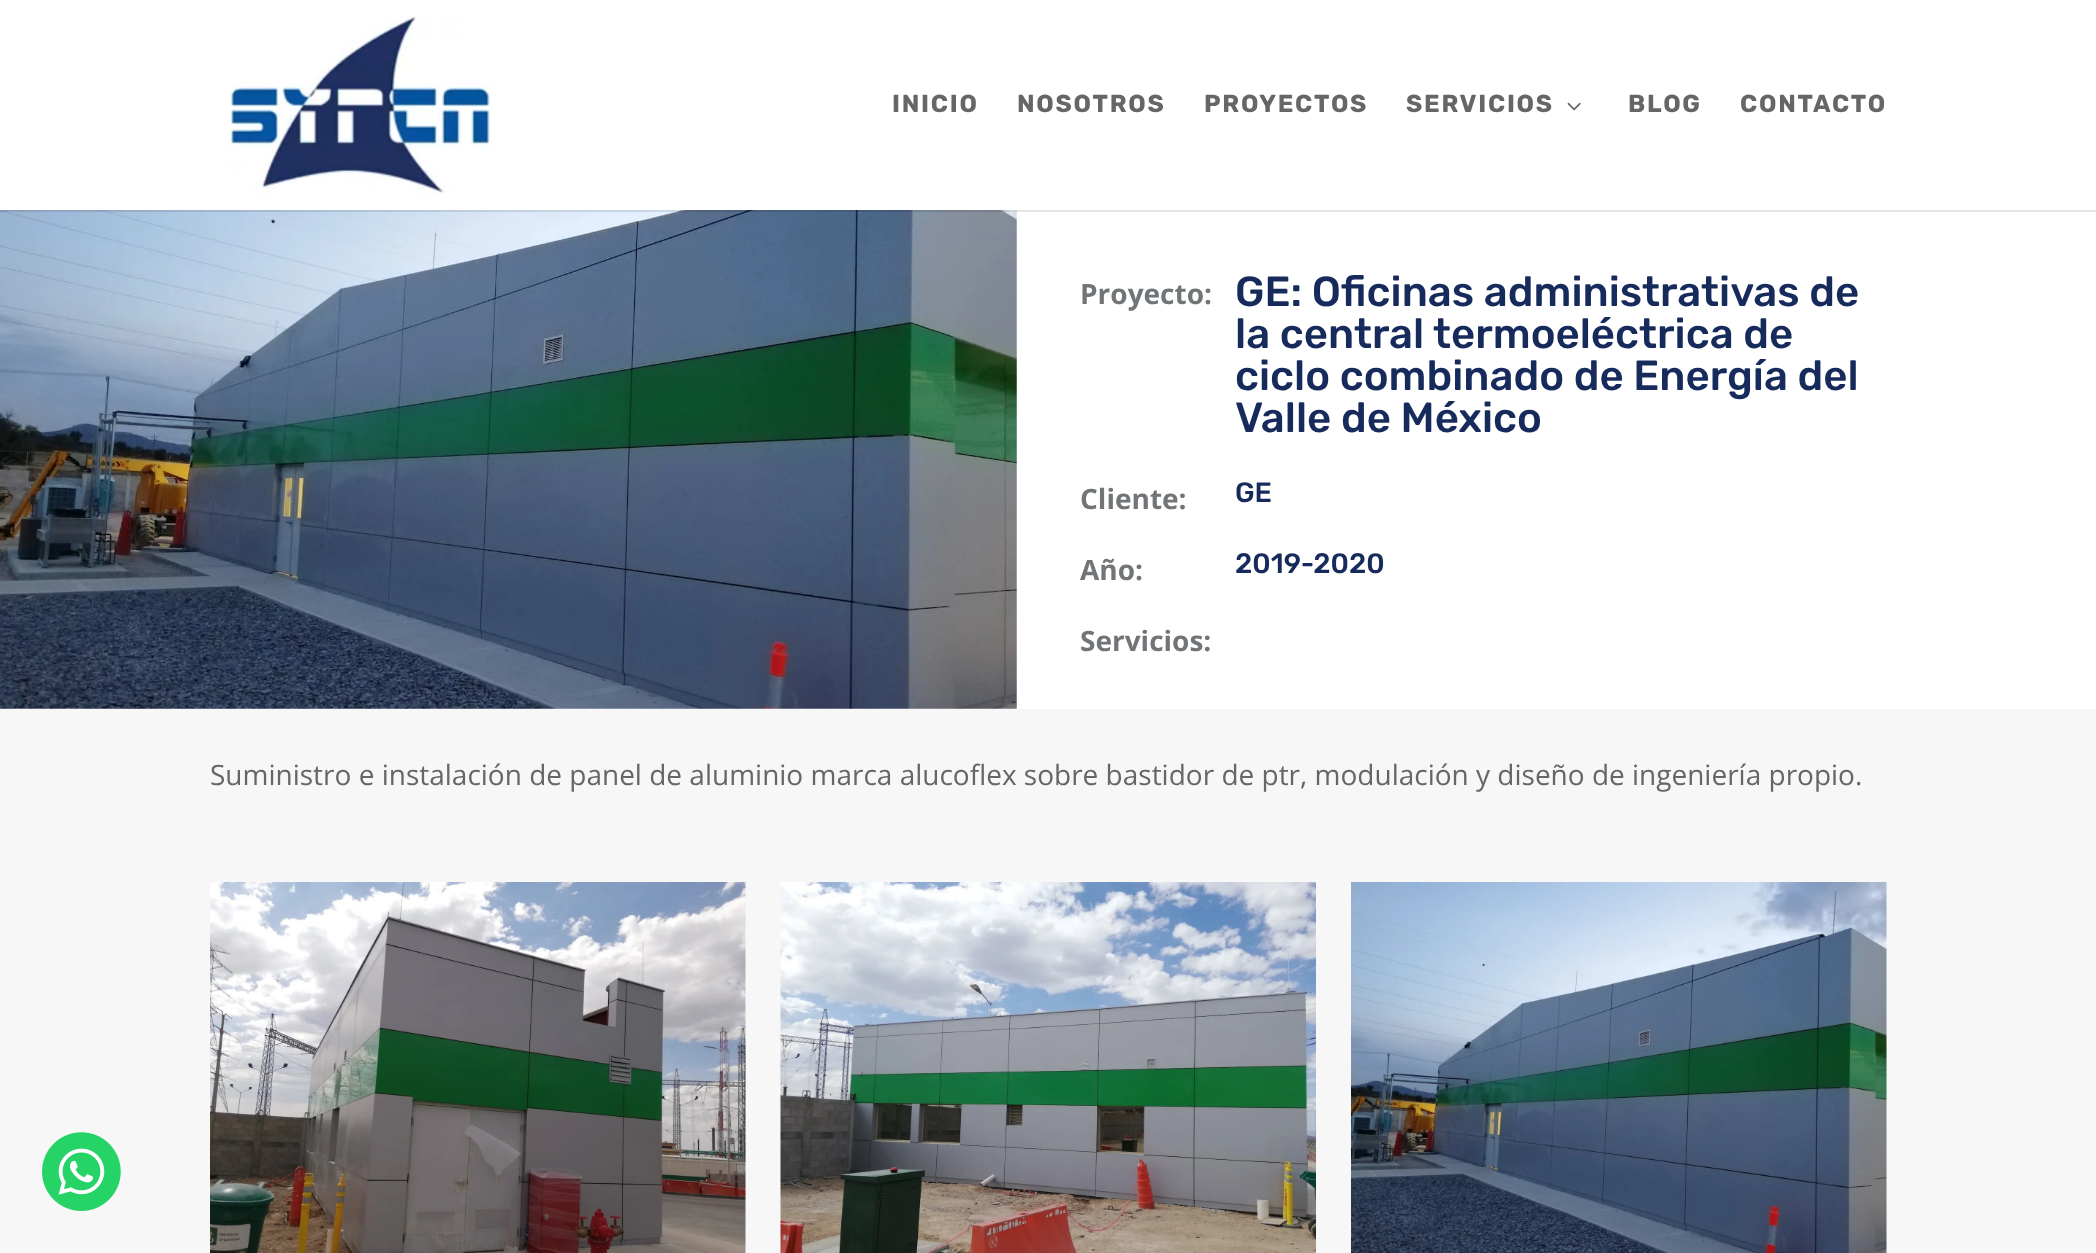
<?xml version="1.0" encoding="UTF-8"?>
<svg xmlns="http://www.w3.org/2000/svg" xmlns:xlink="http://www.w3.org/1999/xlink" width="2096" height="1253">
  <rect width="100%" height="100%" fill="#ffffff" />
  <image x="0" y="210" width="1017" height="499" xlink:href="image3.png" />
  <path d="M 0 210 v 2 h 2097 v -210 h -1 v 208 z" fill="#000000" fill-opacity="0.1" />
  <image x="226" y="16" width="268" height="179" xlink:href="image1.png" />
  <image x="1567" y="102" width="14" height="9" xlink:href="image2.png" />
  <rect y="709" width="2096" height="544" fill="#f7f7f7" />
  <image x="210" y="882" width="536" height="371" xlink:href="image4.png" />
  <image x="780" y="882" width="536" height="371" xlink:href="image5.png" />
  <image x="1351" y="882" width="536" height="371" xlink:href="image6.png" />
  <circle cx="81.5" cy="1171.5" r="39.5" fill="#ffffff" />
  <image x="42" y="1132" width="79" height="79" xlink:href="image7.png" />
  <text x="892" y="112" style="font-family: 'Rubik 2'; font-size: 24.5px; font-weight: 300; letter-spacing: 1.75px; fill: #666666">INICIO</text>
  <text x="1017" y="112" style="font-family: 'Rubik 2'; font-size: 24.5px; font-weight: 300; letter-spacing: 1.75px; fill: #666666">NOSOTROS</text>
  <text x="1204" y="112" style="font-family: 'Rubik 2'; font-size: 24.5px; font-weight: 300; letter-spacing: 1.75px; fill: #666666">PROYECTOS</text>
  <text x="1406" y="112" style="font-family: 'Rubik 2'; font-size: 24.5px; font-weight: 300; letter-spacing: 1.75px; fill: #666666">SERVICIOS</text>
  <text x="1628" y="112" style="font-family: 'Rubik 2'; font-size: 24.5px; font-weight: 300; letter-spacing: 1.75px; fill: #666666">BLOG</text>
  <text x="1740" y="112" style="font-family: 'Rubik 2'; font-size: 24.5px; font-weight: 300; letter-spacing: 1.75px; fill: #666666">CONTACTO</text>
  <text x="1080" y="304" style="font-family: Open Sans; font-size: 28px; font-weight: bold; fill: #727577">Proyecto:</text>
  <text x="1235" y="306" style="font-family: Rubik; font-size: 42px; font-weight: 300; fill: #172a5c">GE: Oficinas administrativas de</text>
  <text x="1235" y="348" style="font-family: Rubik; font-size: 42px; font-weight: 300; fill: #172a5c">la central termoeléctrica de</text>
  <text x="1235" y="390" style="font-family: Rubik; font-size: 42px; font-weight: 300; fill: #172a5c">ciclo combinado de Energía del</text>
  <text x="1235" y="432" style="font-family: Rubik; font-size: 42px; font-weight: 300; fill: #172a5c">Valle de México</text>
  <text x="1080" y="509" style="font-family: Open Sans; font-size: 28px; font-weight: bold; fill: #727577">Cliente:</text>
  <text x="1235" y="502" style="font-family: Rubik; font-size: 28px; font-weight: 300; fill: #172a5c">GE</text>
  <text x="1080" y="580" style="font-family: Open Sans; font-size: 28px; font-weight: bold; fill: #727577">Año:</text>
  <text x="1235" y="573" style="font-family: Rubik; font-size: 28px; font-weight: 300; fill: #172a5c">2019-2020</text>
  <text x="1080" y="651" style="font-family: Open Sans; font-size: 28px; font-weight: bold; fill: #727577">Servicios:</text>
  <text x="210" y="785" style="font-family: Open Sans; font-size: 28px; fill: #666666">Suministro e instalación de panel de aluminio marca alucoflex sobre bastidor de ptr, modulación y diseño de ingeniería propio.</text>
</svg>
